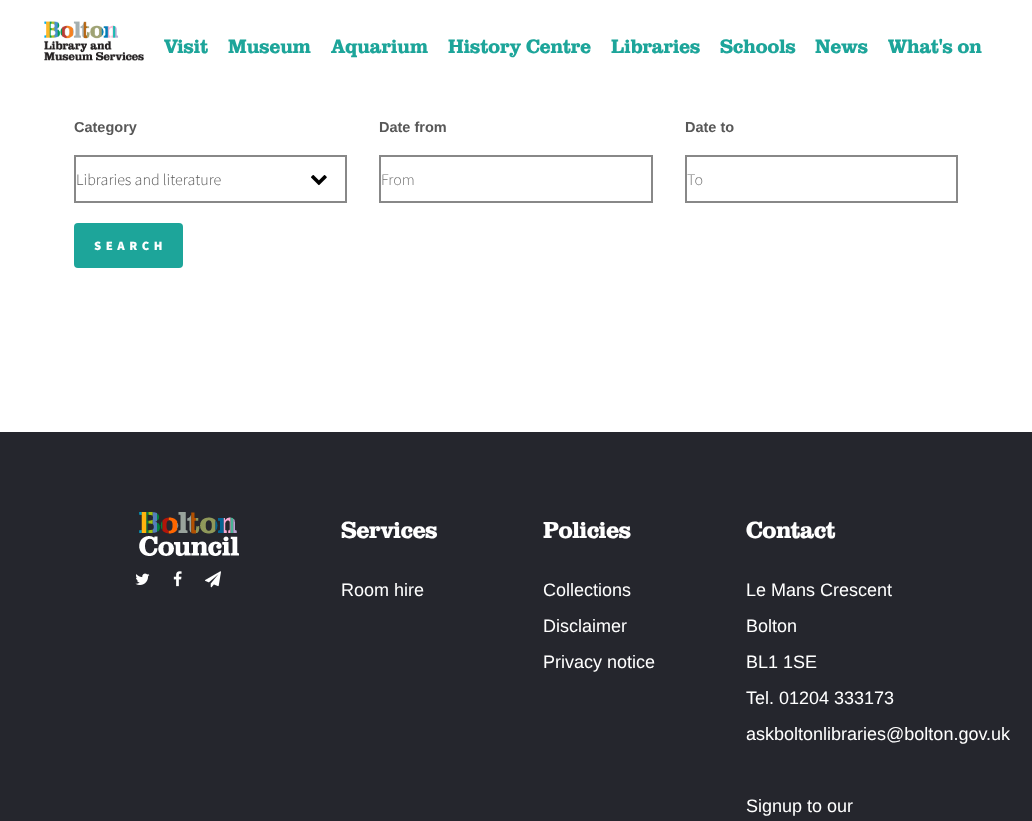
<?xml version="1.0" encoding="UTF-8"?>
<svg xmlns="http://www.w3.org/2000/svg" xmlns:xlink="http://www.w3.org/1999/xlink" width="1032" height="821">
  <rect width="100%" height="100%" fill="#ffffff" />
  <image x="44" y="21" width="100" height="40" xlink:href="image1.png" />
  <image x="311" y="175" width="16" height="11" xlink:href="image2.png" />
  <rect x="75" y="156" width="271" height="46" fill="none" stroke="#888888" stroke-width="2" />
  <rect x="380" y="156" width="272" height="46" fill="none" stroke="#888888" stroke-width="2" />
  <rect x="686" y="156" width="271" height="46" fill="none" stroke="#888888" stroke-width="2" />
  <rect x="74" y="223" width="109" height="45" rx="4" fill="#1da59a" />
  <rect y="432" width="1032" height="389" fill="#25262d" />
  <image x="139" y="512" width="100" height="44" xlink:href="image3.png" />
  <image x="135" y="573" width="15" height="12" xlink:href="image4.png" />
  <image x="173" y="571" width="9" height="16" xlink:href="image5.png" />
  <image x="205" y="571" width="16" height="17" xlink:href="image6.png" />
  <text x="164" y="53" style="font-family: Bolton; font-size: 20px; fill: #1da59a">Visit</text>
  <text x="228" y="53" style="font-family: Bolton; font-size: 20px; fill: #1da59a">Museum</text>
  <text x="331" y="53" style="font-family: Bolton; font-size: 20px; fill: #1da59a">Aquarium</text>
  <text x="448" y="53" style="font-family: Bolton; font-size: 20px; fill: #1da59a">History Centre</text>
  <text x="611" y="53" style="font-family: Bolton; font-size: 20px; fill: #1da59a">Libraries</text>
  <text x="720" y="53" style="font-family: Bolton; font-size: 20px; fill: #1da59a">Schools</text>
  <text x="815" y="53" style="font-family: Bolton; font-size: 20px; fill: #1da59a">News</text>
  <text x="888" y="53" style="font-family: Bolton; font-size: 20px; fill: #1da59a">What's on</text>
  <text x="74" y="132" style="font-family: Liberation Sans; font-size: 14.5px; font-weight: bold; fill: #585858">Category</text>
  <text x="76" y="185" style="font-family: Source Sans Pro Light; font-size: 16px; font-weight: 300; fill: #585858">Libraries and literature</text>
  <text x="379" y="132" style="font-family: Liberation Sans; font-size: 14.5px; font-weight: bold; fill: #585858">Date from</text>
  <text x="381" y="185" style="font-family: Source Sans Pro Light; font-size: 16px; font-weight: 300; fill: #707070">From</text>
  <text x="685" y="132" style="font-family: Liberation Sans; font-size: 14.5px; font-weight: bold; fill: #585858">Date to</text>
  <text x="687" y="185" style="font-family: Source Sans Pro Light; font-size: 16px; font-weight: 300; fill: #707070">To</text>
  <text x="94" y="250" style="font-family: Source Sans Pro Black; font-size: 12.75px; font-weight: 900; letter-spacing: 4.5px; fill: #ffffff">SEARCH</text>
  <text x="341" y="538" style="font-family: Bolton; font-size: 24px; letter-spacing: -0.25px; fill: #ffffff">Services</text>
  <text x="341" y="596" style="font-family: Liberation Sans; font-size: 18px; fill: #ffffff">Room hire</text>
  <text x="543" y="538" style="font-family: Bolton; font-size: 24px; letter-spacing: -0.25px; fill: #ffffff">Policies</text>
  <text x="543" y="596" style="font-family: Liberation Sans; font-size: 18px; fill: #ffffff">Collections</text>
  <text x="543" y="632" style="font-family: Liberation Sans; font-size: 18px; fill: #ffffff">Disclaimer</text>
  <text x="543" y="668" style="font-family: Liberation Sans; font-size: 18px; fill: #ffffff">Privacy notice</text>
  <text x="746" y="538" style="font-family: Bolton; font-size: 24px; letter-spacing: -0.25px; fill: #ffffff">Contact</text>
  <text x="746" y="596" style="font-family: Liberation Sans; font-size: 18px; fill: #ffffff">Le Mans Crescent</text>
  <text x="746" y="632" style="font-family: Liberation Sans; font-size: 18px; fill: #ffffff">Bolton</text>
  <text x="746" y="668" style="font-family: Liberation Sans; font-size: 18px; fill: #ffffff">BL1 1SE</text>
  <text x="746" y="704" style="font-family: Liberation Sans; font-size: 18px; fill: #ffffff">Tel. 01204 333173</text>
  <text x="746" y="740" style="font-family: Liberation Sans; font-size: 18px; fill: #ffffff">askboltonlibraries@bolton.gov.uk</text>
  <text x="746" y="812" style="font-family: Liberation Sans; font-size: 18px; fill: #ffffff">Signup to our</text>
</svg>
